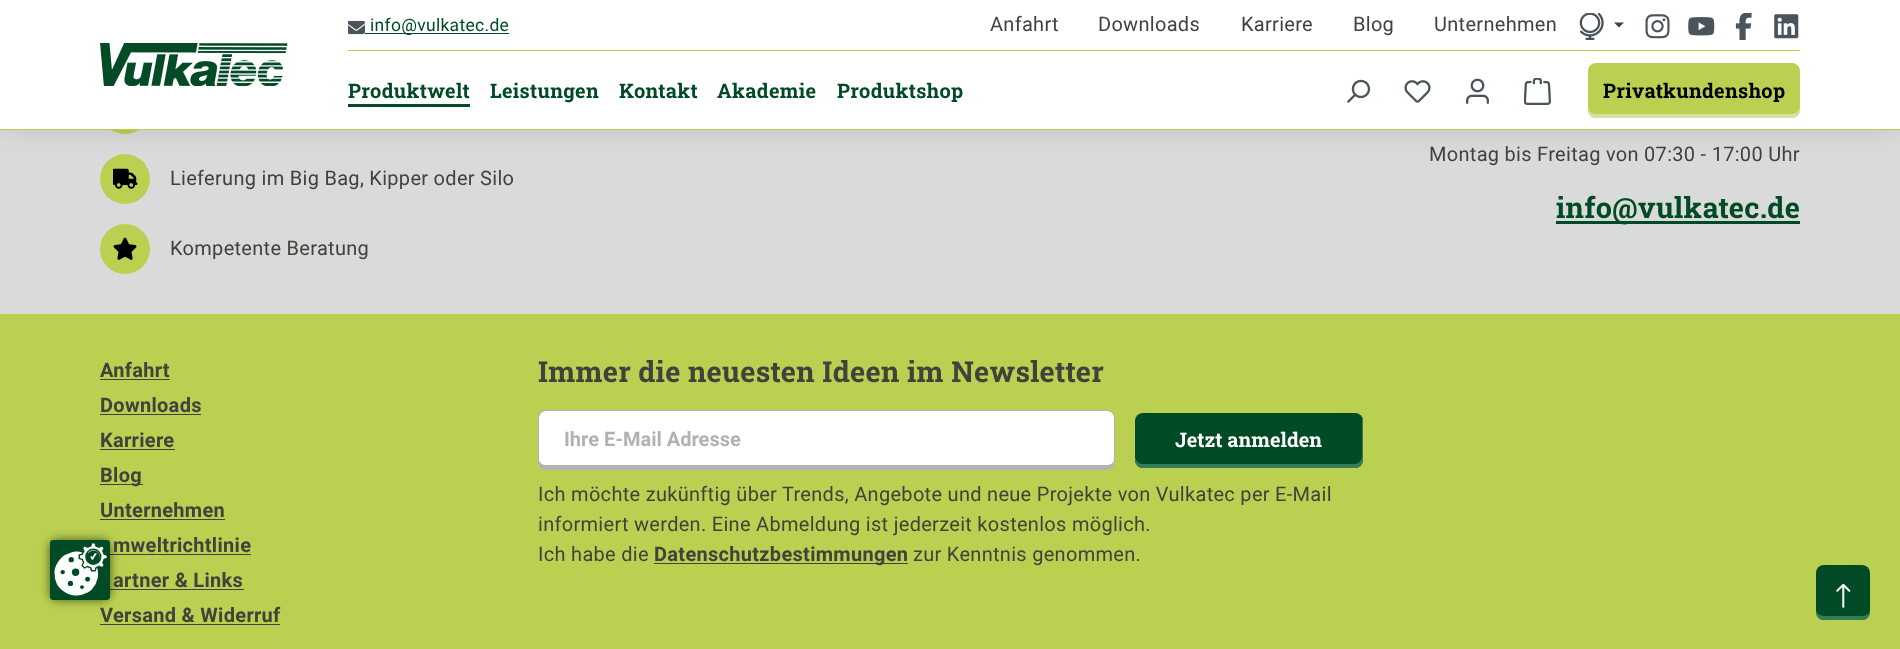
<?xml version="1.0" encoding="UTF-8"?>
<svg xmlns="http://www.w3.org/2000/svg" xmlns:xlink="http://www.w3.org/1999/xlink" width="1900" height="649">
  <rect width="100%" height="100%" fill="#d9dada" />
  <circle cx="125" cy="109" r="25" fill="#bad050" />
  <circle cx="125" cy="179" r="25" fill="#bad050" />
  <image x="113" y="168" width="25" height="21" xlink:href="image13.png" />
  <rect x="6" y="5" width="1888" height="118" fill="#000000" fill-opacity="0.2" filter="blur(15px)" />
  <rect width="1900" height="129" fill="#ffffff" />
  <rect y="129" width="1900" height="1" fill="#bad050" />
  <image x="100" y="43" width="188" height="43" xlink:href="image1.png" />
  <rect x="348" y="50" width="1452" height="1" fill="#bad050" />
  <image x="348" y="20" width="17" height="15" xlink:href="image2.png" />
  <rect x="365" y="33" width="144" height="1" fill="#004b25" />
  <image x="1579" y="13" width="25" height="27" xlink:href="image3.png" />
  <path d="M 1614 22.5 h 10 l -5 5 z" fill="#42423d" />
  <image x="1645" y="14" width="25" height="25" xlink:href="image4.png" />
  <image x="1688" y="17" width="27" height="19" xlink:href="image5.png" />
  <image x="1735" y="13" width="17" height="27" xlink:href="image6.png" />
  <image x="1774" y="14" width="25" height="25" xlink:href="image7.png" />
  <rect x="348" y="104" width="122" height="3" fill="#004b25" />
  <image x="1347" y="79" width="24" height="24" xlink:href="image8.png" />
  <image x="1404" y="80" width="27" height="23" xlink:href="image9.png" />
  <image x="1466" y="78" width="23" height="26" xlink:href="image10.png" />
  <image x="1524" y="78" width="27" height="27" xlink:href="image11.png" />
  <rect x="1588" y="63" width="212" height="55" rx="8" fill="#bad050" />
  <path d="M 1588 106 v 4 c 0 4 4 8 8 8 h 196 c 4 0 8 -4 8 -8 v -4 c 0 4 -3 8 -8 8 h -197 c -4 0 -7 -4 -7 -8 z" fill="#d6e0a6" />
  <rect y="314" width="1900" height="335" fill="#bad050" />
  <rect x="110" y="554" width="141" height="1" fill="#42423d" />
  <rect x="110" y="589" width="134" height="1" fill="#42423d" />
  <rect x="49" y="539" width="62" height="62" rx="9" fill="#000000" fill-opacity="0.5" filter="blur(4px)" />
  <image x="50" y="540" width="60" height="60" xlink:href="image12.png" />
  <circle cx="125" cy="249" r="25" fill="#bad050" />
  <image x="113" y="237" width="24" height="23" xlink:href="image14.png" />
  <rect x="1556" y="221" width="244" height="3" fill="#004b25" />
  <rect x="100" y="379" width="70" height="1" fill="#42423d" />
  <rect x="100" y="414" width="101" height="1" fill="#42423d" />
  <rect x="100" y="449" width="75" height="1" fill="#42423d" />
  <rect x="100" y="484" width="43" height="1" fill="#42423d" />
  <rect x="100" y="519" width="125" height="1" fill="#42423d" />
  <rect x="100" y="624" width="180" height="1" fill="#42423d" />
  <rect x="539" y="411" width="575" height="58" rx="6" fill="#ffffff" />
  <path d="M 539 459 c 0 4 0 10 6 10 h 563 c 6 0 6 -6 6 -10 c 0 3 -3 6 -6 6 h -563 c -3 0 -6 -3 -6 -6 z" fill="#b1b2b3" />
  <rect x="538.5" y="410.5" width="576" height="59" rx="7.5" fill="none" stroke="#b1b2b3" />
  <rect x="1135" y="413" width="228" height="55" rx="8" fill="#004b25" />
  <path d="M 1135 456 v 4 c 0 4 4 8 8 8 h 212 c 4 0 8 -4 8 -8 v -39 c 0 -1 0 -3 -1 -4 v 39 c 0 4 -3 8 -7 8 h -213 c -4 0 -7 -4 -7 -8 z" fill="#357c58" />
  <rect x="654" y="563" width="254" height="1" fill="#42423d" />
  <rect x="1816" y="565" width="54" height="55" rx="8" fill="#004b25" />
  <path d="M 1816 609 c 0 11 5 11 14 11 h 26 c 9 0 14 0 14 -11 c 0 4 -3 7 -8 7 h -38 c -4 0 -8 -3 -8 -7 z" fill="#357c58" />
  <image x="1836" y="584" width="15" height="24" xlink:href="image15.png" />
  <text x="370" y="31" style="font-family: Roboto; font-size: 17.5px; letter-spacing: 0.3px; fill: #004b25">info@vulkatec.de</text>
  <text x="990" y="31" style="font-family: Roboto; font-size: 20px; letter-spacing: 0.3px; fill: #42423d">Anfahrt</text>
  <text x="1098" y="31" style="font-family: Roboto; font-size: 20px; letter-spacing: 0.3px; fill: #42423d">Downloads</text>
  <text x="1241" y="31" style="font-family: Roboto; font-size: 20px; letter-spacing: 0.3px; fill: #42423d">Karriere</text>
  <text x="1353" y="31" style="font-family: Roboto; font-size: 20px; letter-spacing: 0.3px; fill: #42423d">Blog</text>
  <text x="1434" y="31" style="font-family: Roboto; font-size: 20px; letter-spacing: 0.3px; fill: #42423d">Unternehmen</text>
  <text x="348" y="98" style="font-family: Roboto Slab; font-size: 20px; font-weight: bold; letter-spacing: 0.3px; fill: #004b25">Produktwelt</text>
  <text x="490" y="98" style="font-family: Roboto Slab; font-size: 20px; font-weight: bold; letter-spacing: 0.3px; fill: #004b25">Leistungen</text>
  <text x="619" y="98" style="font-family: Roboto Slab; font-size: 20px; font-weight: bold; letter-spacing: 0.3px; fill: #004b25">Kontakt</text>
  <text x="717" y="98" style="font-family: Roboto Slab; font-size: 20px; font-weight: bold; letter-spacing: 0.3px; fill: #004b25">Akademie</text>
  <text x="837" y="98" style="font-family: Roboto Slab; font-size: 20px; font-weight: bold; letter-spacing: 0.3px; fill: #004b25">Produktshop</text>
  <text x="1603" y="98" style="font-family: Roboto Slab; font-size: 20px; font-weight: bold; letter-spacing: 0.3px; fill: #000000">Privatkundenshop</text>
  <text x="170" y="185" style="font-family: Roboto; font-size: 20px; letter-spacing: 0.3px; fill: #42423d">Lieferung im Big Bag, Kipper oder Silo</text>
  <text x="170" y="255" style="font-family: Roboto; font-size: 20px; letter-spacing: 0.3px; fill: #42423d">Kompetente Beratung</text>
  <text x="1429" y="161" style="font-family: Roboto; font-size: 20px; letter-spacing: 0.3px; fill: #42423d">Montag bis Freitag von 07:30 - 17:00 Uhr</text>
  <text x="1556" y="218" style="font-family: Roboto Slab; font-size: 28.8px; font-weight: bold; letter-spacing: 0.3px; fill: #004b25">info@vulkatec.de</text>
  <text x="100" y="377" style="font-family: Roboto; font-size: 20px; font-weight: bold; letter-spacing: 0.3px; fill: #42423d">Anfahrt</text>
  <text x="100" y="412" style="font-family: Roboto; font-size: 20px; font-weight: bold; letter-spacing: 0.3px; fill: #42423d">Downloads</text>
  <text x="100" y="447" style="font-family: Roboto; font-size: 20px; font-weight: bold; letter-spacing: 0.3px; fill: #42423d">Karriere</text>
  <text x="100" y="482" style="font-family: Roboto; font-size: 20px; font-weight: bold; letter-spacing: 0.3px; fill: #42423d">Blog</text>
  <text x="100" y="517" style="font-family: Roboto; font-size: 20px; font-weight: bold; letter-spacing: 0.3px; fill: #42423d">Unternehmen</text>
  <text x="113" y="552" style="font-family: Roboto; font-size: 20px; font-weight: bold; letter-spacing: 0.3px; fill: #42423d">mweltrichtlinie</text>
  <text x="113" y="587" style="font-family: Roboto; font-size: 20px; font-weight: bold; letter-spacing: 0.3px; fill: #42423d">artner &amp; Links</text>
  <text x="100" y="622" style="font-family: Roboto; font-size: 20px; font-weight: bold; letter-spacing: 0.3px; fill: #42423d">Versand &amp; Widerruf</text>
  <text x="538" y="382" style="font-family: Roboto Slab; font-size: 28.8px; font-weight: bold; letter-spacing: 0.3px; fill: #42423d">Immer die neuesten Ideen im Newsletter</text>
  <text x="564" y="446" style="font-family: Roboto; font-size: 20px; font-weight: bold; fill: #b1b2b3">Ihre E-Mail Adresse</text>
  <text x="1175" y="447" style="font-family: Roboto Slab; font-size: 20px; font-weight: bold; fill: #ffffff">Jetzt anmelden</text>
  <text x="538" y="501" style="font-family: Roboto; font-size: 20px; letter-spacing: 0.3px; fill: #42423d">Ich möchte zukünftig über Trends, Angebote und neue Projekte von Vulkatec per E-Mail</text>
  <text x="538" y="531" style="font-family: Roboto; font-size: 20px; letter-spacing: 0.3px; fill: #42423d">informiert werden. Eine Abmeldung ist jederzeit kostenlos möglich.</text>
  <text x="538" y="561" style="font-family: Roboto; font-size: 20px; letter-spacing: 0.3px; fill: #42423d">Ich habe die</text>
  <text x="654" y="561" style="font-family: Roboto; font-size: 20px; font-weight: bold; letter-spacing: 0.3px; fill: #42423d">Datenschutzbestimmungen</text>
  <text x="913" y="561" style="font-family: Roboto; font-size: 20px; letter-spacing: 0.3px; fill: #42423d">zur Kenntnis genommen.</text>
</svg>
